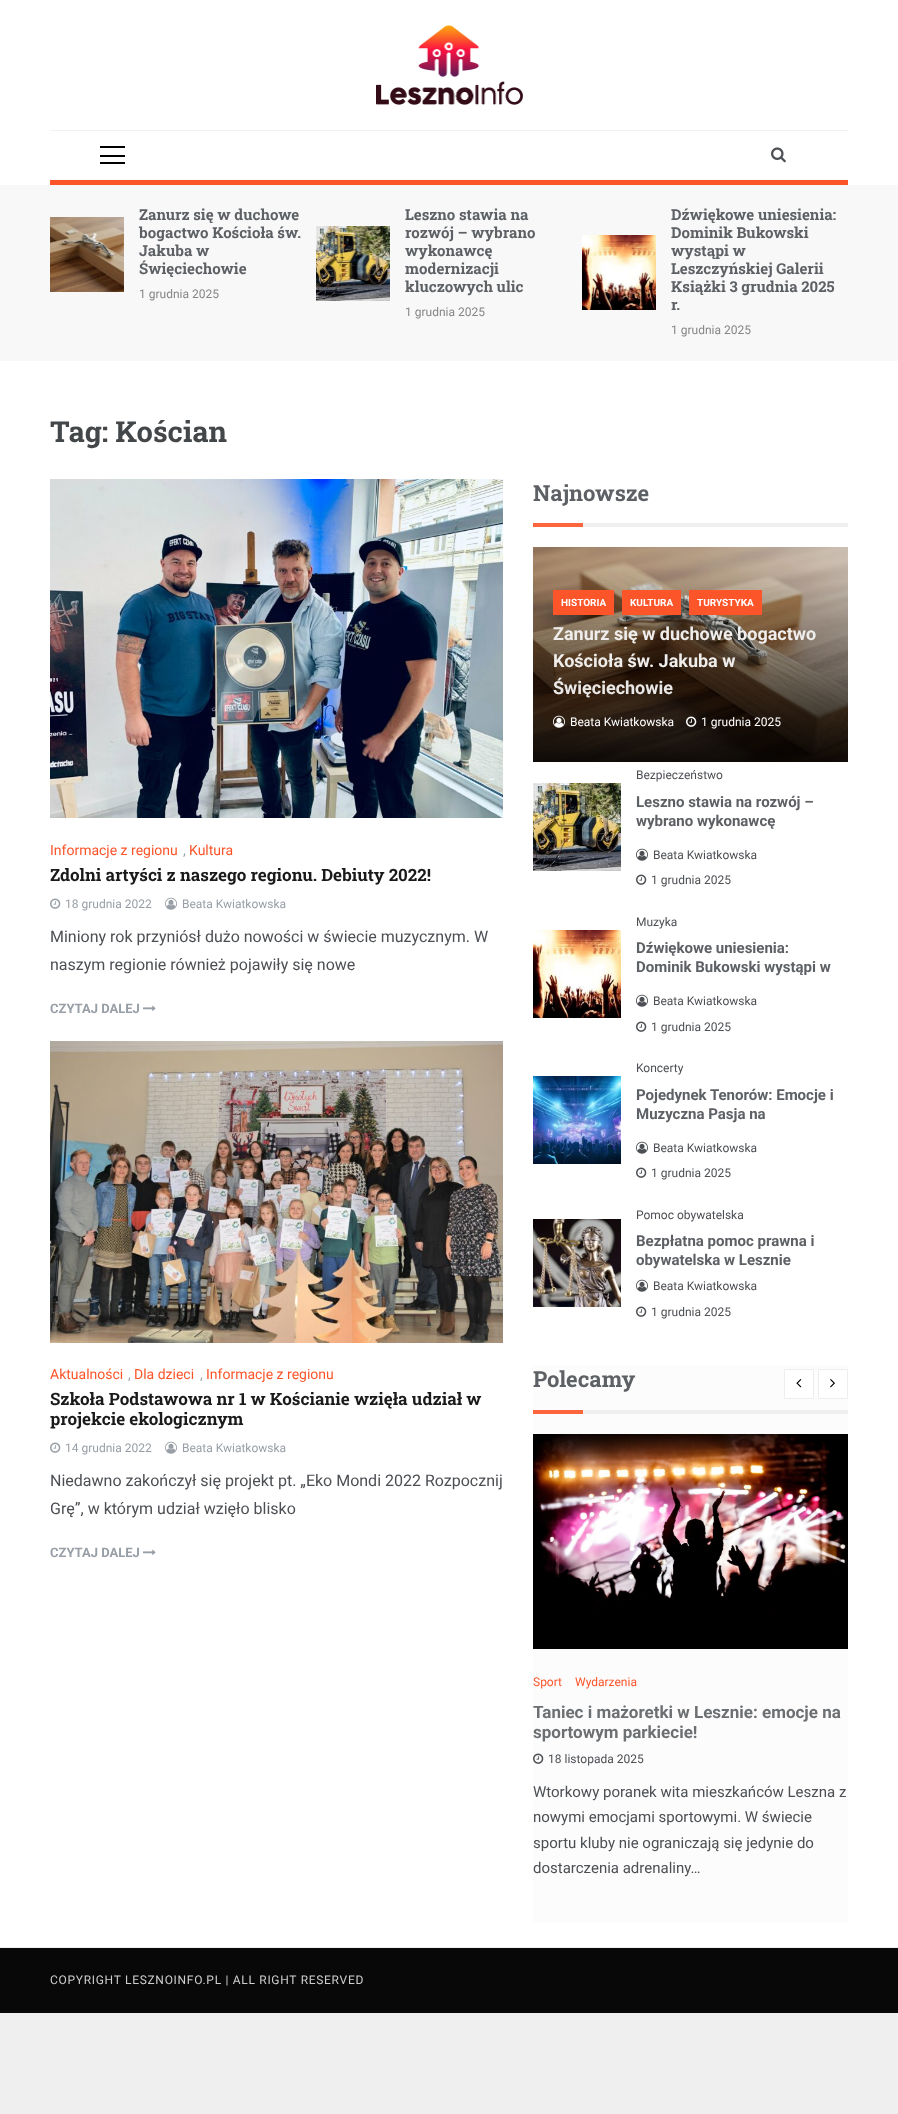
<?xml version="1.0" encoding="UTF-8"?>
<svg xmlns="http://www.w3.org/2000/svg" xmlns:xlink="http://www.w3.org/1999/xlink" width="898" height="2114">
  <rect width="100%" height="100%" fill="#efefef" />
  <rect width="898" height="1947" fill="#ffffff" />
  <rect x="50" y="180" width="798" height="5" fill="#fc552a" />
  <rect x="50" y="179" width="798" height="1" fill="#fafafa" />
  <rect x="50" y="130" width="798" height="1" fill="#f2f2f2" />
  <image x="376" y="25" width="147" height="80" xlink:href="image1.png" />
  <rect x="100" y="146" width="25" height="2" fill="#000000" />
  <rect x="100" y="155" width="25" height="2" fill="#000000" />
  <rect x="100" y="162" width="25" height="2" fill="#000000" />
  <image x="771" y="147" width="15" height="16" xlink:href="image2.png" />
  <rect y="185" width="898" height="176" fill="#f8f8f8" />
  <image x="50" y="217" width="74" height="75" xlink:href="image3.png" />
  <image x="316" y="226" width="74" height="75" xlink:href="image4.png" />
  <image x="582" y="235" width="74" height="75" xlink:href="image5.png" />
  <image x="50" y="479" width="453" height="339" xlink:href="image6.png" />
  <image x="50" y="898" width="11" height="11" xlink:href="image7.png" />
  <image x="165" y="897" width="12" height="13" xlink:href="image8.png" />
  <image x="143" y="1005" width="13" height="6" xlink:href="image9.png" />
  <image x="50" y="1041" width="453" height="302" xlink:href="image10.png" />
  <image x="50" y="1442" width="11" height="11" xlink:href="image7.png" />
  <image x="165" y="1441" width="12" height="13" xlink:href="image8.png" />
  <image x="143" y="1549" width="13" height="6" xlink:href="image9.png" />
  <rect x="533" y="523" width="50" height="4" fill="#fc663f" />
  <rect x="583" y="523" width="265" height="4" fill="#f0f0f0" />
  <image x="533" y="547" width="315" height="215" xlink:href="image11.png" />
  <rect x="553" y="590" width="61" height="25" fill="#fc552a" />
  <rect x="622" y="590" width="59" height="25" fill="#fc552a" />
  <rect x="689" y="590" width="73" height="25" fill="#fc552a" />
  <image x="553" y="715" width="12" height="13" xlink:href="image12.png" />
  <image x="686" y="716" width="11" height="11" xlink:href="image13.png" />
  <image x="533" y="783" width="88" height="88" xlink:href="image14.png" />
  <image x="636" y="848" width="12" height="13" xlink:href="image15.png" />
  <image x="636" y="874" width="11" height="11" xlink:href="image16.png" />
  <image x="533" y="930" width="88" height="88" xlink:href="image17.png" />
  <image x="636" y="994" width="12" height="13" xlink:href="image15.png" />
  <image x="636" y="1021" width="11" height="11" xlink:href="image16.png" />
  <image x="533" y="1076" width="88" height="88" xlink:href="image18.png" />
  <image x="636" y="1141" width="12" height="13" xlink:href="image15.png" />
  <image x="636" y="1167" width="11" height="11" xlink:href="image16.png" />
  <image x="533" y="1219" width="88" height="88" xlink:href="image19.png" />
  <image x="636" y="1279" width="12" height="13" xlink:href="image15.png" />
  <image x="636" y="1306" width="11" height="11" xlink:href="image16.png" />
  <rect x="533" y="1365" width="315" height="557" fill="#fcfcfc" />
  <rect x="533" y="1410" width="50" height="4" fill="#fc663f" />
  <rect x="583" y="1410" width="265" height="4" fill="#efefef" />
  <rect x="784.5" y="1369.5" width="29" height="29" fill="#ffffff" stroke="#eeeeee" />
  <image x="796" y="1379" width="6" height="9" xlink:href="image20.png" />
  <rect x="818.5" y="1369.5" width="29" height="29" fill="#ffffff" stroke="#eeeeee" />
  <image x="830" y="1379" width="5" height="9" xlink:href="image21.png" />
  <image x="533" y="1434" width="315" height="215" xlink:href="image22.png" />
  <image x="533" y="1753" width="11" height="11" xlink:href="image23.png" />
  <rect y="1948" width="898" height="65" fill="#080808" />
  <text x="139" y="220" style="font-family: Roboto Slab; font-size: 15px; font-weight: bold; fill: #5d6064">Zanurz się w duchowe</text>
  <text x="139" y="238" style="font-family: Roboto Slab; font-size: 15px; font-weight: bold; fill: #5d6064">bogactwo Kościoła św.</text>
  <text x="139" y="256" style="font-family: Roboto Slab; font-size: 15px; font-weight: bold; fill: #5d6064">Jakuba w</text>
  <text x="139" y="274" style="font-family: Roboto Slab; font-size: 15px; font-weight: bold; fill: #5d6064">Święciechowie</text>
  <text x="139" y="298" style="font-family: Roboto; font-size: 12px; fill: #868686">1 grudnia 2025</text>
  <text x="405" y="220" style="font-family: Roboto Slab; font-size: 15px; font-weight: bold; fill: #5d6064">Leszno stawia na</text>
  <text x="405" y="238" style="font-family: Roboto Slab; font-size: 15px; font-weight: bold; fill: #5d6064">rozwój – wybrano</text>
  <text x="405" y="256" style="font-family: Roboto Slab; font-size: 15px; font-weight: bold; fill: #5d6064">wykonawcę</text>
  <text x="405" y="274" style="font-family: Roboto Slab; font-size: 15px; font-weight: bold; fill: #5d6064">modernizacji</text>
  <text x="405" y="292" style="font-family: Roboto Slab; font-size: 15px; font-weight: bold; fill: #5d6064">kluczowych ulic</text>
  <text x="405" y="316" style="font-family: Roboto; font-size: 12px; fill: #868686">1 grudnia 2025</text>
  <text x="671" y="220" style="font-family: Roboto Slab; font-size: 15px; font-weight: bold; fill: #5d6064">Dźwiękowe uniesienia:</text>
  <text x="671" y="238" style="font-family: Roboto Slab; font-size: 15px; font-weight: bold; fill: #5d6064">Dominik Bukowski</text>
  <text x="671" y="256" style="font-family: Roboto Slab; font-size: 15px; font-weight: bold; fill: #5d6064">wystąpi w</text>
  <text x="671" y="274" style="font-family: Roboto Slab; font-size: 15px; font-weight: bold; fill: #5d6064">Leszczyńskiej Galerii</text>
  <text x="671" y="292" style="font-family: Roboto Slab; font-size: 15px; font-weight: bold; fill: #5d6064">Książki 3 grudnia 2025</text>
  <text x="671" y="310" style="font-family: Roboto Slab; font-size: 15px; font-weight: bold; fill: #5d6064">r.</text>
  <text x="671" y="334" style="font-family: Roboto; font-size: 12px; fill: #868686">1 grudnia 2025</text>
  <text x="50" y="442" style="font-family: Roboto Slab; font-size: 29px; font-weight: bold; fill: #444749">Tag: Kościan</text>
  <text x="50" y="855" style="font-family: Roboto; font-size: 14px; fill: #fc552a">Informacje z regionu</text>
  <text x="183" y="855" style="font-family: Roboto; font-size: 14px; fill: #989ea6">,</text>
  <text x="189" y="855" style="font-family: Roboto; font-size: 14px; fill: #fc552a">Kultura</text>
  <text x="50" y="881" style="font-family: Roboto Slab; font-size: 17px; font-weight: bold; fill: #1a1a1a">Zdolni artyści z naszego regionu. Debiuty 2022!</text>
  <text x="65" y="908" style="font-family: Roboto; font-size: 12px; fill: #989ea6">18 grudnia 2022</text>
  <text x="182" y="908" style="font-family: Roboto; font-size: 12px; fill: #989ea6">Beata Kwiatkowska</text>
  <text x="50" y="942" style="font-family: Roboto; font-size: 16px; fill: #4c4f53">Miniony rok przyniósł dużo nowości w świecie muzycznym. W</text>
  <text x="50" y="970" style="font-family: Roboto; font-size: 16px; fill: #4c4f53">naszym regionie również pojawiły się nowe</text>
  <text x="50" y="1013" style="font-family: Roboto; font-size: 13px; font-weight: bold; fill: #989ea6">CZYTAJ DALEJ</text>
  <text x="50" y="1379" style="font-family: Roboto; font-size: 14px; fill: #fc552a">Aktualności</text>
  <text x="128" y="1379" style="font-family: Roboto; font-size: 14px; fill: #989ea6">,</text>
  <text x="134" y="1379" style="font-family: Roboto; font-size: 14px; fill: #fc552a">Dla dzieci</text>
  <text x="200" y="1379" style="font-family: Roboto; font-size: 14px; fill: #989ea6">,</text>
  <text x="206" y="1379" style="font-family: Roboto; font-size: 14px; fill: #fc552a">Informacje z regionu</text>
  <text x="50" y="1405" style="font-family: Roboto Slab; font-size: 17px; font-weight: bold; fill: #1a1a1a">Szkoła Podstawowa nr 1 w Kościanie wzięła udział w</text>
  <text x="50" y="1425" style="font-family: Roboto Slab; font-size: 17px; font-weight: bold; fill: #1a1a1a">projekcie ekologicznym</text>
  <text x="65" y="1452" style="font-family: Roboto; font-size: 12px; fill: #989ea6">14 grudnia 2022</text>
  <text x="182" y="1452" style="font-family: Roboto; font-size: 12px; fill: #989ea6">Beata Kwiatkowska</text>
  <text x="50" y="1486" style="font-family: Roboto; font-size: 16px; fill: #4c4f53">Niedawno zakończył się projekt pt. „Eko Mondi 2022 Rozpocznij</text>
  <text x="50" y="1514" style="font-family: Roboto; font-size: 16px; fill: #4c4f53">Grę”, w którym udział wzięło blisko</text>
  <text x="50" y="1557" style="font-family: Roboto; font-size: 13px; font-weight: bold; fill: #989ea6">CZYTAJ DALEJ</text>
  <text x="533" y="501" style="font-family: Roboto Slab; font-size: 22px; font-weight: bold; fill: #5d6064">Najnowsze</text>
  <text x="561" y="606" style="font-family: Roboto; font-size: 10px; font-weight: bold; fill: #ffffff">HISTORIA</text>
  <text x="630" y="606" style="font-family: Roboto; font-size: 10px; font-weight: bold; fill: #ffffff">KULTURA</text>
  <text x="697" y="606" style="font-family: Roboto; font-size: 10px; font-weight: bold; fill: #ffffff">TURYSTYKA</text>
  <text x="553" y="640" style="font-family: Roboto; font-size: 18px; font-weight: bold; fill: #f0eeec">Zanurz się w duchowe bogactwo</text>
  <text x="553" y="667" style="font-family: Roboto; font-size: 18px; font-weight: bold; fill: #f0eeec">Kościoła św. Jakuba w</text>
  <text x="553" y="694" style="font-family: Roboto; font-size: 18px; font-weight: bold; fill: #eae8e7">Święciechowie</text>
  <text x="570" y="726" style="font-family: Roboto; font-size: 12px; fill: #ffffff">Beata Kwiatkowska</text>
  <text x="701" y="726" style="font-family: Roboto; font-size: 12px; fill: #ffffff">1 grudnia 2025</text>
  <text x="636" y="779" style="font-family: Roboto; font-size: 12px; fill: #4c4f53">Bezpieczeństwo</text>
  <text x="636" y="807" style="font-family: Roboto; font-size: 15px; font-weight: bold; fill: #5d6064">Leszno stawia na rozwój –</text>
  <text x="636" y="826" style="font-family: Roboto; font-size: 15px; font-weight: bold; fill: #5d6064">wybrano wykonawcę</text>
  <text x="653" y="859" style="font-family: Roboto; font-size: 12px; fill: #4c4f53">Beata Kwiatkowska</text>
  <text x="651" y="884" style="font-family: Roboto; font-size: 12px; fill: #4c4f53">1 grudnia 2025</text>
  <text x="636" y="926" style="font-family: Roboto; font-size: 12px; fill: #4c4f53">Muzyka</text>
  <text x="636" y="953" style="font-family: Roboto; font-size: 15px; font-weight: bold; fill: #5d6064">Dźwiękowe uniesienia:</text>
  <text x="636" y="972" style="font-family: Roboto; font-size: 15px; font-weight: bold; fill: #5d6064">Dominik Bukowski wystąpi w</text>
  <text x="653" y="1005" style="font-family: Roboto; font-size: 12px; fill: #4c4f53">Beata Kwiatkowska</text>
  <text x="651" y="1031" style="font-family: Roboto; font-size: 12px; fill: #4c4f53">1 grudnia 2025</text>
  <text x="636" y="1072" style="font-family: Roboto; font-size: 12px; fill: #4c4f53">Koncerty</text>
  <text x="636" y="1100" style="font-family: Roboto; font-size: 15px; font-weight: bold; fill: #5d6064">Pojedynek Tenorów: Emocje i</text>
  <text x="636" y="1119" style="font-family: Roboto; font-size: 15px; font-weight: bold; fill: #5d6064">Muzyczna Pasja na</text>
  <text x="653" y="1152" style="font-family: Roboto; font-size: 12px; fill: #4c4f53">Beata Kwiatkowska</text>
  <text x="651" y="1177" style="font-family: Roboto; font-size: 12px; fill: #4c4f53">1 grudnia 2025</text>
  <text x="636" y="1219" style="font-family: Roboto; font-size: 12px; fill: #4c4f53">Pomoc obywatelska</text>
  <text x="636" y="1246" style="font-family: Roboto; font-size: 15px; font-weight: bold; fill: #5d6064">Bezpłatna pomoc prawna i</text>
  <text x="636" y="1265" style="font-family: Roboto; font-size: 15px; font-weight: bold; fill: #5d6064">obywatelska w Lesznie</text>
  <text x="653" y="1290" style="font-family: Roboto; font-size: 12px; fill: #4c4f53">Beata Kwiatkowska</text>
  <text x="651" y="1316" style="font-family: Roboto; font-size: 12px; fill: #4c4f53">1 grudnia 2025</text>
  <text x="533" y="1387" style="font-family: Roboto Slab; font-size: 22px; font-weight: bold; fill: #5d6064">Polecamy</text>
  <text x="533" y="1686" style="font-family: Roboto; font-size: 12px; fill: #fc552a">Sport</text>
  <text x="575" y="1686" style="font-family: Roboto; font-size: 12px; fill: #fc552a">Wydarzenia</text>
  <text x="533" y="1718" style="font-family: Roboto; font-size: 17px; font-weight: bold; fill: #6d7073">Taniec i mażoretki w Lesznie: emocje na</text>
  <text x="533" y="1738" style="font-family: Roboto; font-size: 17px; font-weight: bold; fill: #6d7073">sportowym parkiecie!</text>
  <text x="548" y="1763" style="font-family: Roboto; font-size: 12px; fill: #4c4f53">18 listopada 2025</text>
  <text x="533" y="1797" style="font-family: Roboto; font-size: 15px; fill: #4c4f53">Wtorkowy poranek wita mieszkańców Leszna z</text>
  <text x="533" y="1822" style="font-family: Roboto; font-size: 15px; fill: #4c4f53">nowymi emocjami sportowymi. W świecie</text>
  <text x="533" y="1848" style="font-family: Roboto; font-size: 15px; fill: #4c4f53">sportu kluby nie ograniczają się jedynie do</text>
  <text x="533" y="1873" style="font-family: Roboto; font-size: 15px; fill: #4c4f53">dostarczenia adrenaliny…</text>
  <text x="50" y="1984" style="font-family: Roboto; font-size: 12px; letter-spacing: 0.7px; fill: #cecece">COPYRIGHT LESZNOINFO.PL | ALL RIGHT RESERVED</text>
</svg>
